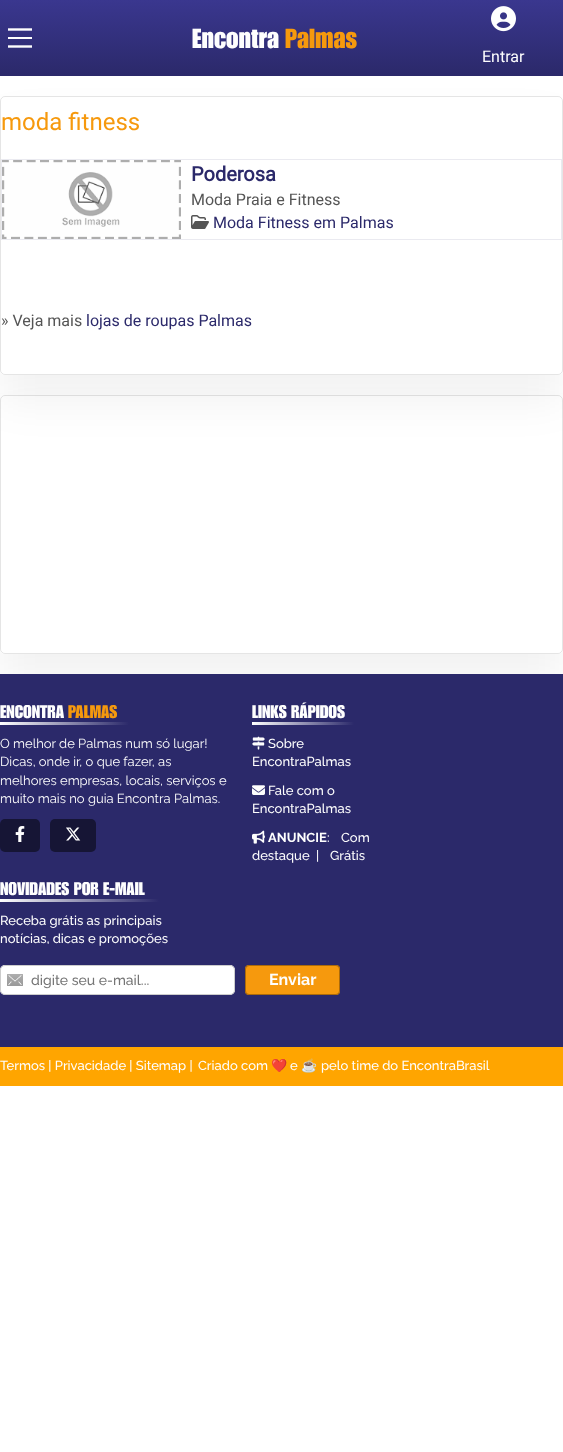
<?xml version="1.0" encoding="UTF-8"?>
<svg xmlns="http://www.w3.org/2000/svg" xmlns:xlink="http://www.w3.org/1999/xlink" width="563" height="1452">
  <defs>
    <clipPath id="clip1"><path d="M 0 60 h 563 v 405 h -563 z m 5 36 h 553 c 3 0 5 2 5 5 v 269 c 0 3 -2 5 -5 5 h -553 c -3 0 -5 -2 -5 -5 v -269 c 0 -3 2 -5 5 -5 z" clip-rule="evenodd" /></clipPath>
    <linearGradient id="g1" gradientUnits="userSpaceOnUse" x1="282" y1="0" x2="282" y2="76"><stop offset="0" stop-color="#3a378f" /><stop offset="1" stop-color="#2b296a" /></linearGradient>
    <clipPath id="clip2"><path d="M 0 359 h 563 v 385 h -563 z m 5 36 h 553 c 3 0 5 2 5 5 v 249 c 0 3 -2 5 -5 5 h -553 c -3 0 -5 -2 -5 -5 v -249 c 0 -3 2 -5 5 -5 z" clip-rule="evenodd" /></clipPath>
    <linearGradient id="g2" gradientUnits="userSpaceOnUse" x1="0" y1="724" x2="129" y2="724"><stop offset="0" stop-color="#ffffff" /><stop offset="1" stop-color="#2b296a" /></linearGradient>
    <linearGradient id="g3" gradientUnits="userSpaceOnUse" x1="252" y1="724" x2="354" y2="724"><stop offset="0" stop-color="#ffffff" /><stop offset="1" stop-color="#2b296a" /></linearGradient>
    <linearGradient id="g4" gradientUnits="userSpaceOnUse" x1="0" y1="901" x2="159" y2="901"><stop offset="0" stop-color="#ffffff" /><stop offset="1" stop-color="#2b296a" /></linearGradient>
  </defs>
  <rect width="100%" height="100%" fill="#ffffff" />
  <g clip-path="url(#clip1)">
    <rect y="123" width="563" height="279" rx="5" fill="#000000" fill-opacity="0.05" filter="blur(20.5px)" />
  </g>
  <rect width="563" height="76" fill="url(#g1)" />
  <path d="M 8 29.5 h 24" fill="none" stroke="#fefefe" stroke-width="2.4" />
  <rect x="8" y="37" width="24" height="2" fill="#fefefe" />
  <path d="M 8 46.5 h 24" fill="none" stroke="#fefefe" stroke-width="2.4" />
  <image x="491" y="6" width="25" height="26" xlink:href="image1.png" />
  <rect x="0.5" y="96.5" width="562" height="278" rx="4.5" fill="none" stroke="#000000" stroke-opacity="0.1" />
  <rect x="1.5" y="159.5" width="560" height="80" fill="none" stroke="#eaeaf0" />
  <image x="2" y="160" width="179" height="79" xlink:href="image2.png" />
  <image x="191" y="215" width="18" height="14" xlink:href="image3.png" />
  <g clip-path="url(#clip2)">
    <rect y="422" width="563" height="259" rx="5" fill="#000000" fill-opacity="0.05" filter="blur(20.5px)" />
  </g>
  <rect x="0.5" y="395.5" width="562" height="258" rx="4.5" fill="none" stroke="#000000" stroke-opacity="0.1" />
  <rect y="674" width="563" height="373" fill="#2b296a" />
  <rect y="722" width="129" height="3" fill="url(#g2)" />
  <rect y="819" width="40" height="33" rx="5" fill="#161535" />
  <image x="15" y="826" width="10" height="16" xlink:href="image4.png" />
  <rect x="50" y="819" width="46" height="33" rx="5" fill="#161535" />
  <image x="66" y="827" width="15" height="14" xlink:href="image5.png" />
  <rect x="252" y="722" width="102" height="3" fill="url(#g3)" />
  <image x="252" y="736" width="13" height="14" xlink:href="image6.png" />
  <image x="252" y="785" width="13" height="10" xlink:href="image7.png" />
  <image x="252" y="830" width="13" height="14" xlink:href="image8.png" />
  <rect y="899" width="159" height="3" fill="url(#g4)" />
  <rect y="965" width="235" height="30" rx="5" fill="#ffffff" />
  <image x="7" y="974" width="16" height="12" xlink:href="image9.png" />
  <rect x="0.5" y="965.5" width="234" height="29" rx="4.5" fill="none" stroke="#cccccc" />
  <rect x="245" y="965" width="95" height="30" rx="4" fill="#f6990d" />
  <rect x="245.5" y="965.5" width="94" height="29" rx="3.5" fill="none" stroke="#000000" stroke-opacity="0.3" />
  <rect y="1047" width="563" height="39" fill="#ffa500" />
  <text x="192" y="48" style="font-family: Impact; font-size: 27px; font-weight: 500; fill: #fefefe">Encontra</text>
  <text x="285" y="48" style="font-family: Impact; font-size: 27px; font-weight: 500; fill: #f6990d">Palmas</text>
  <text x="482" y="62" style="font-family: Roboto; font-size: 16px; fill: #fefefe">Entrar</text>
  <text x="1" y="130" style="font-family: Roboto; font-size: 24px; fill: #f6990d">moda fitness</text>
  <text x="191" y="181" style="font-family: Roboto; font-size: 20px; font-weight: bold; fill: #2b296a">Poderosa</text>
  <text x="191" y="205" style="font-family: Roboto; font-size: 16px; fill: #555555">Moda Praia e Fitness</text>
  <text x="213" y="228" style="font-family: Roboto; font-size: 16px; fill: #2b296a">Moda Fitness em Palmas</text>
  <text x="1" y="326" style="font-family: Roboto; font-size: 16px; fill: #555555">» Veja mais</text>
  <text x="86" y="326" style="font-family: Roboto; font-size: 16px; fill: #2b296a">lojas de roupas Palmas</text>
  <text x="0" y="718" style="font-family: Impact; font-size: 18px; font-weight: 500; fill: #fefefe">ENCONTRA</text>
  <text x="68" y="718" style="font-family: Impact; font-size: 18px; font-weight: 500; fill: #f6990d">PALMAS</text>
  <text x="0" y="748" style="font-family: Raleway; font-size: 13px; fill: #fefefe">O melhor de Palmas num só lugar!</text>
  <text x="0" y="766" style="font-family: Raleway; font-size: 13px; fill: #fefefe">Dicas, onde ir, o que fazer, as</text>
  <text x="0" y="785" style="font-family: Raleway; font-size: 13px; fill: #fefefe">melhores empresas, locais, serviços e</text>
  <text x="0" y="803" style="font-family: Raleway; font-size: 13px; fill: #fefefe">muito mais no guia Encontra Palmas.</text>
  <text x="252" y="718" style="font-family: Impact; font-size: 18px; font-weight: 500; fill: #fefefe">LINKS RÁPIDOS</text>
  <text x="268" y="748" style="font-family: Raleway; font-size: 13px; font-weight: 500; fill: #fefefe">Sobre</text>
  <text x="252" y="766" style="font-family: Raleway; font-size: 13px; font-weight: 500; fill: #fefefe">EncontraPalmas</text>
  <text x="268" y="795" style="font-family: Raleway; font-size: 13px; font-weight: 500; fill: #fefefe">Fale com o</text>
  <text x="252" y="813" style="font-family: Raleway; font-size: 13px; font-weight: 500; fill: #fefefe">EncontraPalmas</text>
  <text x="268" y="842" style="font-family: Raleway; font-size: 13px; font-weight: bold; fill: #fefefe">ANUNCIE</text>
  <text x="327" y="842" style="font-family: Raleway; font-size: 13px; font-weight: 500; fill: #fefefe">:</text>
  <text x="341" y="842" style="font-family: Raleway; font-size: 13px; font-weight: 500; fill: #fefefe">Com</text>
  <text x="252" y="860" style="font-family: Raleway; font-size: 13px; font-weight: 500; fill: #fefefe">destaque</text>
  <text x="316" y="860" style="font-family: Raleway; font-size: 13px; font-weight: 500; fill: #fefefe">|</text>
  <text x="330" y="860" style="font-family: Raleway; font-size: 13px; font-weight: 500; fill: #fefefe">Grátis</text>
  <text x="0" y="895" style="font-family: Impact; font-size: 18px; font-weight: 500; fill: #fefefe">NOVIDADES POR E-MAIL</text>
  <text x="0" y="925" style="font-family: Raleway; font-size: 13px; font-weight: 500; fill: #fefefe">Receba grátis as principais</text>
  <text x="0" y="943" style="font-family: Raleway; font-size: 13px; font-weight: 500; fill: #fefefe">notícias, dicas e promoções</text>
  <text x="31" y="985" style="font-family: Raleway; font-size: 14px; font-weight: 500; fill: #757575">digite seu e-mail...</text>
  <text x="269" y="985" style="font-family: Raleway; font-size: 16px; font-weight: bold; fill: #fefefe">Enviar</text>
  <text x="0" y="1070" style="font-family: Raleway; font-size: 13px; font-weight: 500; fill: #fefefe">Termos | Privacidade | Sitemap |</text>
  <text x="198" y="1070" style="font-family: Raleway; font-size: 13px; font-weight: 500; fill: #fefefe">Criado com</text>
  <text x="271" y="1070" style="font-family: Noto Color Emoji; font-size: 13px; fill: #fefefe">❤️</text>
  <text x="290" y="1070" style="font-family: Raleway; font-size: 13px; font-weight: 500; fill: #fefefe">e</text>
  <text x="301" y="1070" style="font-family: Noto Color Emoji; font-size: 13px; fill: #fefefe">☕</text>
  <text x="321" y="1070" style="font-family: Raleway; font-size: 13px; font-weight: 500; fill: #fefefe">pelo time do EncontraBrasil</text>
</svg>
